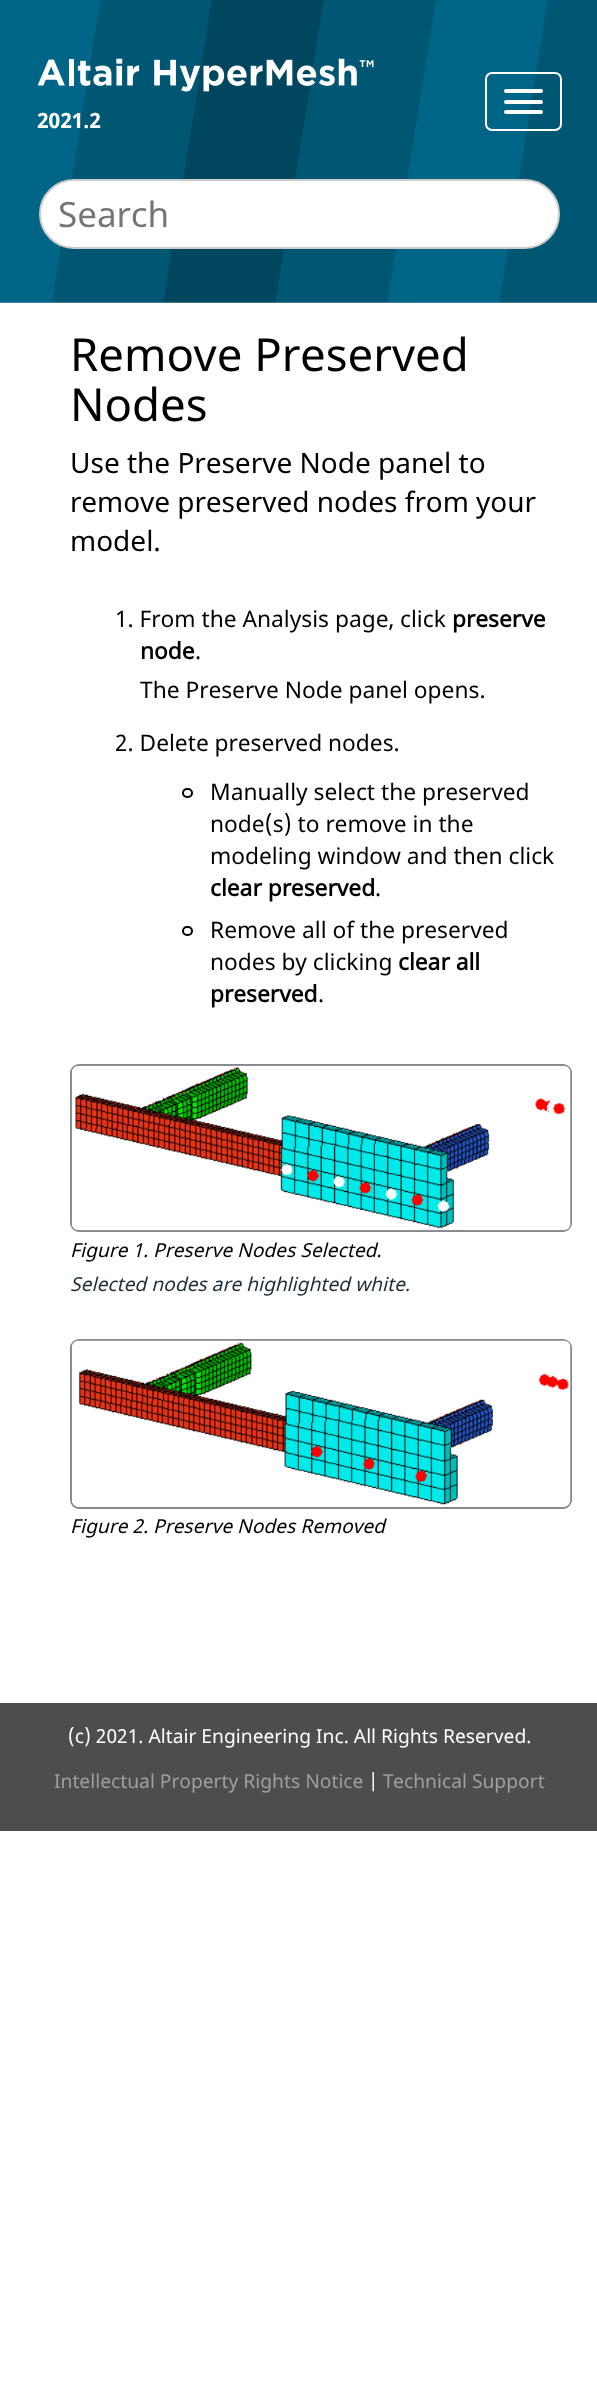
<?xml version="1.0" encoding="UTF-8"?>
<svg xmlns="http://www.w3.org/2000/svg" xmlns:xlink="http://www.w3.org/1999/xlink" width="597" height="2399">
  <rect width="100%" height="100%" fill="#ffffff" />
  <image x="0" y="0" width="597" height="303" xlink:href="image1.png" />
  <image x="37" y="58" width="337" height="34" xlink:href="image2.png" />
  <rect x="486" y="73" width="75" height="57" rx="6" fill="none" stroke="#ffffff" stroke-width="2" />
  <rect x="504" y="89" width="39" height="4" rx="2" fill="#ffffff" />
  <rect x="504" y="100" width="39" height="4" rx="2" fill="#ffffff" />
  <rect x="504" y="110" width="39" height="4" rx="2" fill="#ffffff" />
  <rect x="40" y="180" width="519" height="68" rx="34" fill="#ffffff" stroke="#cccccc" stroke-width="2" />
  <rect x="183" y="789" width="9" height="8" rx="4" fill="none" stroke="#000000" stroke-width="2" />
  <rect x="183" y="927" width="9" height="8" rx="4" fill="none" stroke="#000000" stroke-width="2" />
  <rect x="71" y="1065" width="500" height="166" rx="8" fill="none" stroke="#85898d" stroke-width="2" />
  <image x="71" y="1065" width="500" height="166" xlink:href="image3.png" />
  <rect x="71" y="1340" width="500" height="168" rx="8" fill="none" stroke="#85898d" stroke-width="2" />
  <image x="71" y="1340" width="500" height="167" xlink:href="image4.png" />
  <rect y="1703" width="597" height="128" fill="#4d4d4d" />
  <text x="37" y="128" style="font-family: Noto Sans; font-size: 21px; font-weight: bold; fill: #ffffff">2021.2</text>
  <text x="58" y="227" style="font-family: Noto Sans; font-size: 35px; fill: #757575">Search</text>
  <text x="70" y="371" style="font-family: Noto Sans; font-size: 45.5px; fill: #000000">Remove Preserved</text>
  <text x="70" y="421" style="font-family: Noto Sans; font-size: 45.5px; fill: #000000">Nodes</text>
  <text x="70" y="473" style="font-family: Noto Sans; font-size: 28px; fill: #000000">Use the Preserve Node panel to</text>
  <text x="70" y="512" style="font-family: Noto Sans; font-size: 28px; fill: #000000">remove preserved nodes from your</text>
  <text x="70" y="551" style="font-family: Noto Sans; font-size: 28px; fill: #000000">model.</text>
  <text x="115" y="627" style="font-family: Noto Sans; font-size: 22.75px; fill: #000000">1. From the Analysis page, click</text>
  <text x="452" y="627" style="font-family: 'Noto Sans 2'; font-size: 22.75px; font-weight: bold; fill: #000000">preserve</text>
  <text x="140" y="659" style="font-family: 'Noto Sans 2'; font-size: 22.75px; font-weight: bold; fill: #000000">node</text>
  <text x="195" y="659" style="font-family: Noto Sans; font-size: 22.75px; fill: #000000">.</text>
  <text x="140" y="698" style="font-family: Noto Sans; font-size: 22.75px; fill: #000000">The Preserve Node panel opens.</text>
  <text x="115" y="751" style="font-family: Noto Sans; font-size: 22.75px; fill: #000000">2. Delete preserved nodes.</text>
  <text x="210" y="800" style="font-family: Noto Sans; font-size: 22.75px; fill: #000000">Manually select the preserved</text>
  <text x="210" y="832" style="font-family: Noto Sans; font-size: 22.75px; fill: #000000">node(s) to remove in the</text>
  <text x="210" y="864" style="font-family: Noto Sans; font-size: 22.75px; fill: #000000">modeling window and then click</text>
  <text x="210" y="896" style="font-family: 'Noto Sans 2'; font-size: 22.75px; font-weight: bold; fill: #000000">clear preserved</text>
  <text x="375" y="896" style="font-family: Noto Sans; font-size: 22.75px; fill: #000000">.</text>
  <text x="210" y="938" style="font-family: Noto Sans; font-size: 22.75px; fill: #000000">Remove all of the preserved</text>
  <text x="210" y="970" style="font-family: Noto Sans; font-size: 22.75px; fill: #000000">nodes by clicking</text>
  <text x="398" y="970" style="font-family: 'Noto Sans 2'; font-size: 22.75px; font-weight: bold; fill: #000000">clear all</text>
  <text x="210" y="1002" style="font-family: 'Noto Sans 2'; font-size: 22.75px; font-weight: bold; fill: #000000">preserved</text>
  <text x="318" y="1002" style="font-family: Noto Sans; font-size: 22.75px; fill: #000000">.</text>
  <text x="70" y="1257" style="font-family: Noto Sans; font-size: 19.25px; font-style: italic; fill: #000000">Figure 1. Preserve Nodes Selected.</text>
  <text x="70" y="1291" style="font-family: Noto Sans; font-size: 19.25px; font-style: italic; fill: #1d2e38">Selected nodes are highlighted white.</text>
  <text x="70" y="1533" style="font-family: Noto Sans; font-size: 19.25px; font-style: italic; fill: #000000">Figure 2. Preserve Nodes Removed</text>
  <text x="68" y="1743" style="font-family: Noto Sans; font-size: 19.25px; fill: #ffffff">(c) 2021. Altair Engineering Inc. All Rights Reserved.</text>
  <text x="54" y="1788" style="font-family: Noto Sans; font-size: 19.25px; fill: #9f9f9f">Intellectual Property Rights Notice</text>
  <text x="368" y="1788" style="font-family: Noto Sans; font-size: 19.25px; fill: #ffffff">|</text>
  <text x="383" y="1788" style="font-family: Noto Sans; font-size: 19.25px; fill: #9f9f9f">Technical Support</text>
</svg>
